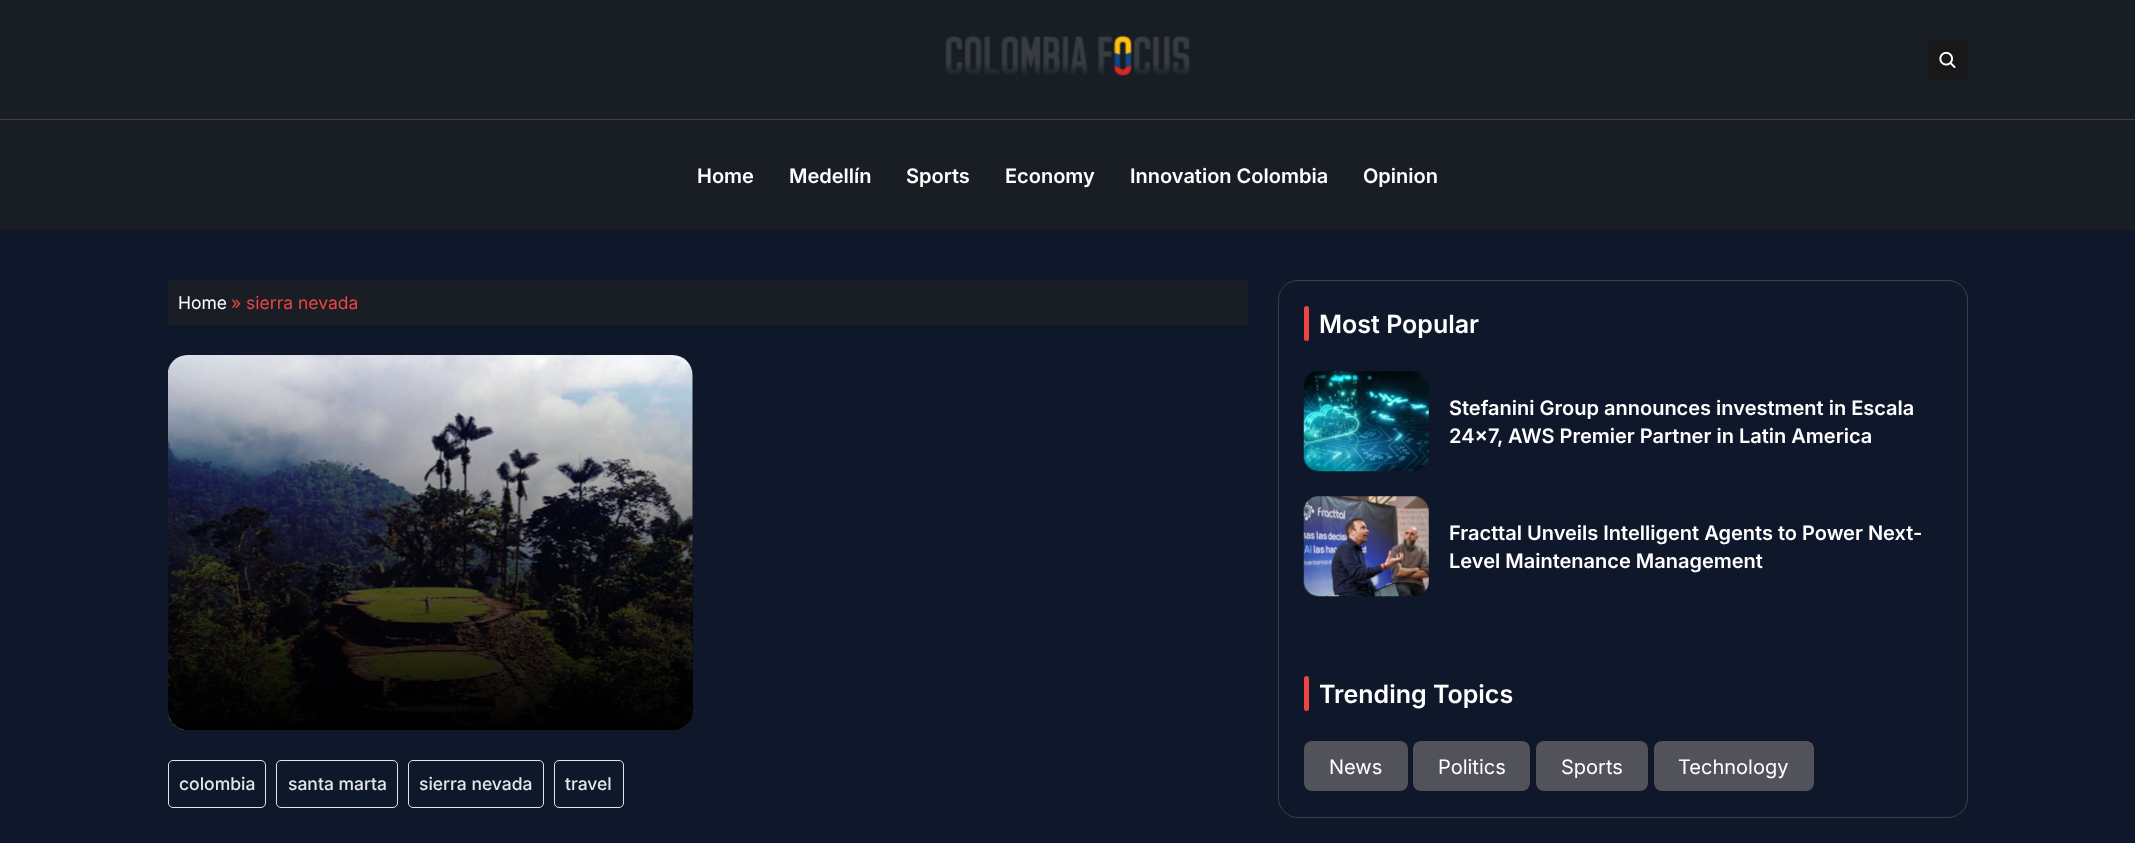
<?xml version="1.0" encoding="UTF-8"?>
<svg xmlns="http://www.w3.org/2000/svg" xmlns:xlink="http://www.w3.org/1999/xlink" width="2135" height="843">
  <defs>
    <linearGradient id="g1" gradientUnits="userSpaceOnUse" x1="430" y1="730" x2="430" y2="355"><stop offset="0" stop-color="#000000" /><stop offset="1" stop-color="#000000" stop-opacity="0" /></linearGradient>
  </defs>
  <rect width="100%" height="100%" fill="#0f172a" />
  <rect width="2135" height="230" fill="#191e25" />
  <rect y="119" width="2135" height="1" fill="#3f3f46" />
  <image x="945" y="35" width="245" height="41" xlink:href="image1.png" />
  <rect x="1928" y="40" width="40" height="40" rx="5" fill="#18181b" />
  <image x="1939" y="51" width="17" height="17" xlink:href="image2.png" />
  <rect x="168" y="280" width="1080" height="45" fill="#191e25" />
  <image x="168" y="355" width="525" height="375" xlink:href="image3.png" />
  <rect x="168" y="355" width="525" height="375" rx="20" fill="url(#g1)" />
  <rect x="168.5" y="760.5" width="97" height="47" rx="4.5" fill="none" stroke="#e4e4e7" />
  <rect x="276.5" y="760.5" width="121" height="47" rx="4.5" fill="none" stroke="#e4e4e7" />
  <rect x="408.5" y="760.5" width="135" height="47" rx="4.5" fill="none" stroke="#e4e4e7" />
  <rect x="554.5" y="760.5" width="69" height="47" rx="4.5" fill="none" stroke="#e4e4e7" />
  <rect x="1278.5" y="280.5" width="689" height="537" rx="19.5" fill="none" stroke="#3f3f46" />
  <rect x="1304" y="306" width="5" height="35" rx="2.5" fill="#ef4444" />
  <image x="1303" y="371" width="126" height="101" xlink:href="image4.png" />
  <image x="1303" y="496" width="126" height="101" xlink:href="image5.png" />
  <rect x="1304" y="676" width="5" height="35" rx="2.5" fill="#ef4444" />
  <rect x="1304" y="741" width="104" height="50" rx="8" fill="#52525b" />
  <rect x="1413" y="741" width="117" height="50" rx="8" fill="#52525b" />
  <rect x="1536" y="741" width="112" height="50" rx="8" fill="#52525b" />
  <rect x="1654" y="741" width="160" height="50" rx="8" fill="#52525b" />
  <text x="697" y="183" style="font-family: Inter; font-size: 20px; font-weight: 600; fill: #ffffff">Home</text>
  <text x="789" y="183" style="font-family: Inter; font-size: 20px; font-weight: 600; fill: #ffffff">Medellín</text>
  <text x="906" y="183" style="font-family: Inter; font-size: 20px; font-weight: 600; fill: #ffffff">Sports</text>
  <text x="1005" y="183" style="font-family: Inter; font-size: 20px; font-weight: 600; fill: #ffffff">Economy</text>
  <text x="1130" y="183" style="font-family: Inter; font-size: 20px; font-weight: 600; fill: #ffffff">Innovation Colombia</text>
  <text x="1363" y="183" style="font-family: Inter; font-size: 20px; font-weight: 600; fill: #ffffff">Opinion</text>
  <text x="178" y="309" style="font-family: Inter; font-size: 17.5px; fill: #ffffff">Home</text>
  <text x="231" y="309" style="font-family: Inter; font-size: 17.5px; fill: #ef4444">» sierra nevada</text>
  <text x="179" y="790" style="font-family: Inter; font-size: 17.5px; font-weight: 500; fill: #e5e7eb">colombia</text>
  <text x="288" y="790" style="font-family: Inter; font-size: 17.5px; font-weight: 500; fill: #e5e7eb">santa marta</text>
  <text x="419" y="790" style="font-family: Inter; font-size: 17.5px; font-weight: 500; fill: #e5e7eb">sierra nevada</text>
  <text x="565" y="790" style="font-family: Inter; font-size: 17.5px; font-weight: 500; fill: #e5e7eb">travel</text>
  <text x="1319" y="333" style="font-family: Inter; font-size: 25px; font-weight: 600; fill: #ffffff">Most Popular</text>
  <text x="1449" y="415" style="font-family: Inter; font-size: 20px; font-weight: 600; fill: #ffffff">Stefanini Group announces investment in Escala</text>
  <text x="1449" y="443" style="font-family: Inter; font-size: 20px; font-weight: 600; fill: #ffffff">24×7, AWS Premier Partner in Latin America</text>
  <text x="1449" y="540" style="font-family: Inter; font-size: 20px; font-weight: 600; fill: #ffffff">Fracttal Unveils Intelligent Agents to Power Next-</text>
  <text x="1449" y="568" style="font-family: Inter; font-size: 20px; font-weight: 600; fill: #ffffff">Level Maintenance Management</text>
  <text x="1319" y="703" style="font-family: Inter; font-size: 25px; font-weight: 600; fill: #ffffff">Trending Topics</text>
  <text x="1329" y="774" style="font-family: Inter; font-size: 20px; fill: #ffffff">News</text>
  <text x="1438" y="774" style="font-family: Inter; font-size: 20px; fill: #ffffff">Politics</text>
  <text x="1561" y="774" style="font-family: Inter; font-size: 20px; fill: #ffffff">Sports</text>
  <text x="1678" y="774" style="font-family: Inter; font-size: 20px; fill: #ffffff">Technology</text>
</svg>
